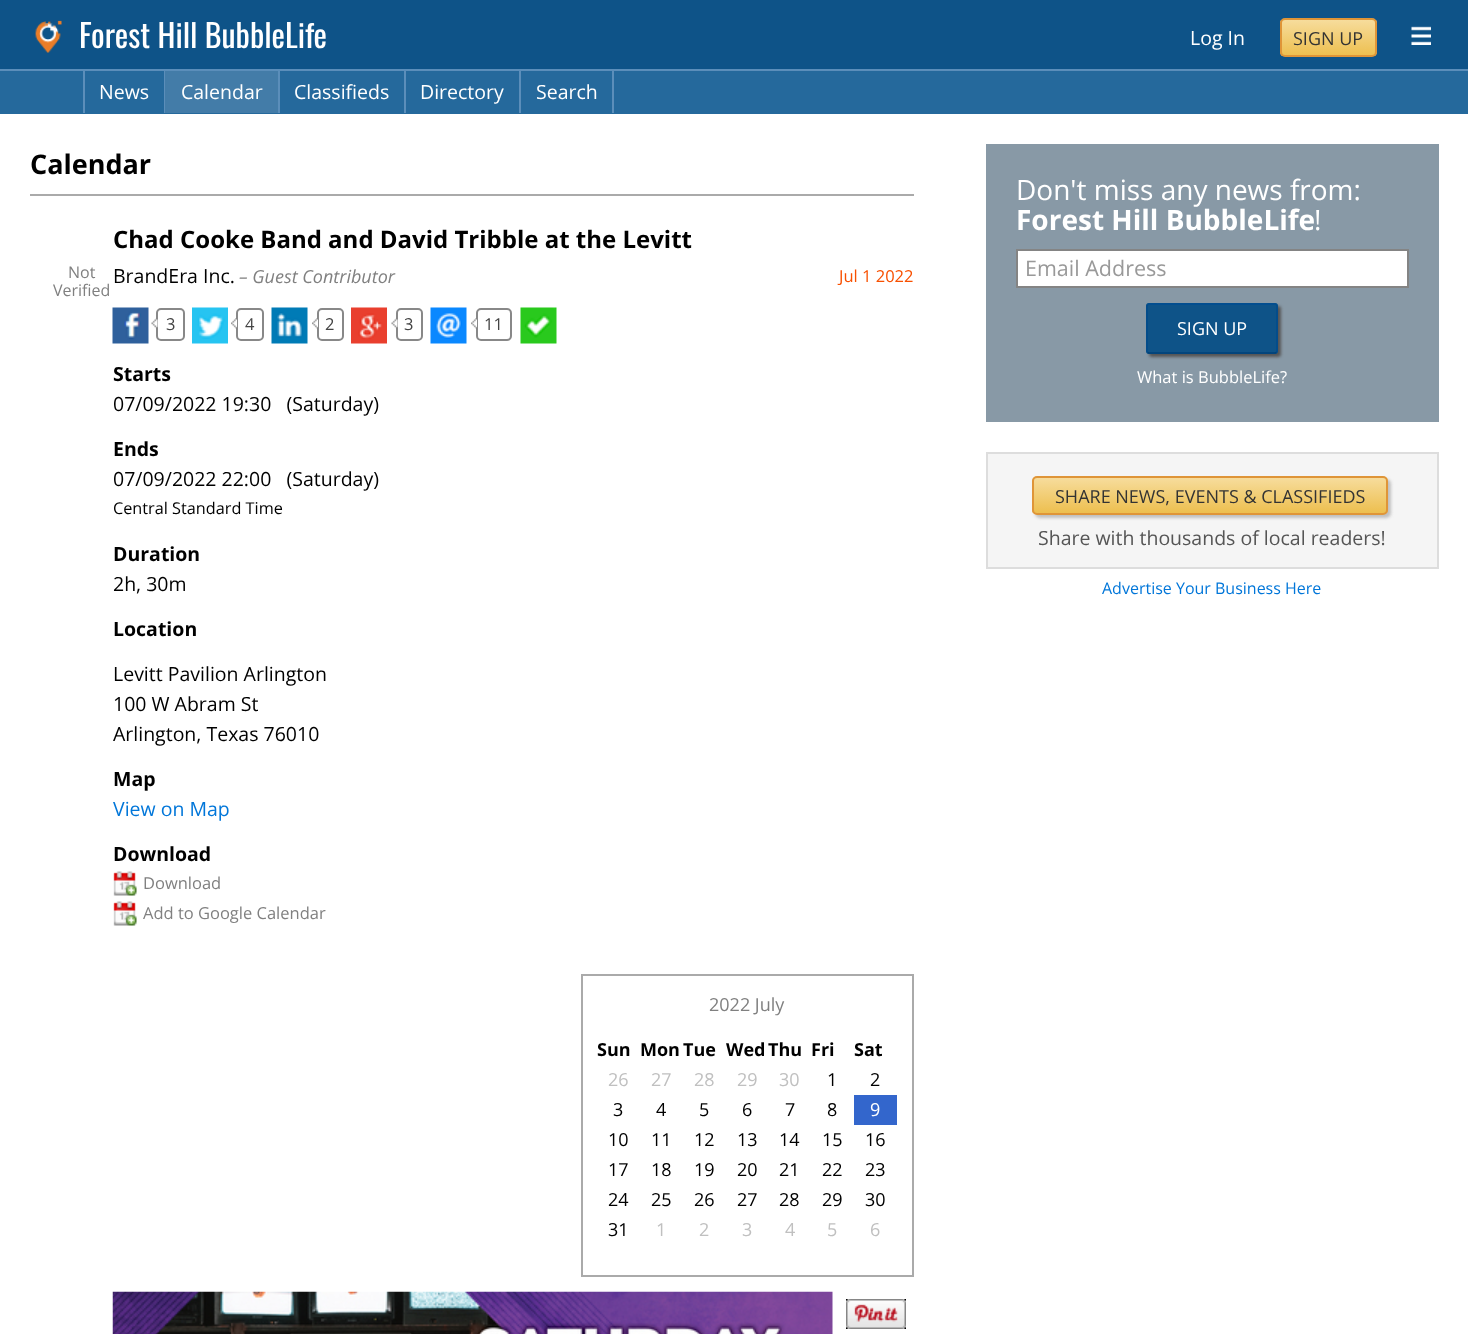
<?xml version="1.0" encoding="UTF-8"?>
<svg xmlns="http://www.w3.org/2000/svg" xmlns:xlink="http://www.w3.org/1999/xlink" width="1468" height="1334">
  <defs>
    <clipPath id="clip1"><rect x="1280" y="18" width="97" height="39" rx="5" /></clipPath>
    <linearGradient id="g1" gradientUnits="userSpaceOnUse" x1="1328" y1="19" x2="1328" y2="56"><stop offset="0" stop-color="#f7dd9e" /><stop offset="1" stop-color="#edbf4f" /></linearGradient>
    <clipPath id="clip2"><rect x="1032" y="476" width="356" height="39" rx="5" /></clipPath>
    <linearGradient id="g2" gradientUnits="userSpaceOnUse" x1="1210" y1="477" x2="1210" y2="513"><stop offset="0" stop-color="#f7dd9e" /><stop offset="1" stop-color="#edbf4f" /></linearGradient>
  </defs>
  <rect width="100%" height="100%" fill="#ffffff" />
  <rect width="1468" height="69" fill="#0e5388" />
  <image x="35" y="20" width="27" height="33" xlink:href="image1.png" />
  <g clip-path="url(#clip1)">
    <rect x="1280" y="20" width="97" height="36" fill="url(#g1)" />
  </g>
  <rect x="1281" y="19" width="95" height="37" rx="4" fill="none" stroke="#df9538" stroke-width="2" />
  <image x="1411" y="26" width="20" height="19" xlink:href="image2.png" />
  <rect y="71" width="1468" height="43" fill="#25699c" />
  <rect y="69" width="1468" height="2" fill="#5b8eba" />
  <rect x="164" y="71" width="1" height="42" fill="#5b8eba" />
  <rect x="83" y="71" width="2" height="42" fill="#5b8eba" />
  <rect x="165" y="71" width="113" height="42" fill="#437ca8" />
  <rect x="278" y="71" width="2" height="42" fill="#5b8eba" />
  <rect x="404" y="71" width="2" height="42" fill="#5b8eba" />
  <rect x="519" y="71" width="2" height="42" fill="#5b8eba" />
  <rect x="612" y="71" width="2" height="42" fill="#5b8eba" />
  <rect x="30" y="194" width="884" height="2" fill="#aaaaaa" />
  <image x="112" y="307" width="37" height="37" xlink:href="image3.png" />
  <rect x="157" y="309" width="27" height="31" rx="4" fill="none" stroke="#888888" stroke-width="2" />
  <image x="151" y="318" width="7" height="11" xlink:href="image4.png" />
  <image x="192" y="307" width="36" height="37" xlink:href="image5.png" />
  <rect x="237" y="309" width="26" height="31" rx="4" fill="none" stroke="#888888" stroke-width="2" />
  <image x="231" y="318" width="6" height="11" xlink:href="image6.png" />
  <image x="271" y="307" width="37" height="37" xlink:href="image7.png" />
  <rect x="318" y="309" width="25" height="31" rx="4" fill="none" stroke="#888888" stroke-width="2" />
  <image x="312" y="318" width="6" height="11" xlink:href="image8.png" />
  <image x="351" y="307" width="36" height="37" xlink:href="image9.png" />
  <rect x="397" y="309" width="25" height="31" rx="4" fill="none" stroke="#888888" stroke-width="2" />
  <image x="391" y="318" width="7" height="11" xlink:href="image10.png" />
  <image x="430" y="307" width="37" height="37" xlink:href="image11.png" />
  <rect x="477" y="309" width="34" height="31" rx="4" fill="none" stroke="#888888" stroke-width="2" />
  <image x="471" y="318" width="6" height="11" xlink:href="image8.png" />
  <image x="520" y="307" width="37" height="37" xlink:href="image12.png" />
  <image x="113" y="871" width="24" height="25" xlink:href="image13.png" />
  <image x="113" y="901" width="24" height="25" xlink:href="image13.png" />
  <rect x="582" y="975" width="331" height="301" fill="none" stroke="#aaaaaa" stroke-width="2" />
  <rect x="854" y="1095" width="43" height="30" fill="#3366cc" />
  <image x="112" y="1291" width="721" height="43" xlink:href="image14.png" />
  <image x="846" y="1299" width="60" height="30" xlink:href="image15.png" />
  <rect x="986" y="144" width="453" height="278" fill="#8899a6" />
  <rect x="1017" y="250" width="391" height="37" fill="#ffffff" stroke="#848484" stroke-width="2" />
  <rect x="1149" y="306" width="132" height="51" rx="3" fill="#555555" filter="blur(1.5px)" />
  <rect x="1146" y="303" width="132" height="51" rx="3" fill="#0e5388" />
  <path d="M 1147.5 304.5 l 1.5 -0.5 h 126 l 1.5 0.5" fill="none" stroke="#004e91" stroke-width="1.5" />
  <path d="M 1276.5 304.5 l 0.5 1.5 v 45 l -0.5 1.5" fill="none" stroke="#014b8b" stroke-width="1.5" />
  <path d="M 1276.5 352.5 l -1.5 0.5 h -126 l -1.5 -0.5" fill="none" stroke="#004178" stroke-width="1.5" />
  <path d="M 1147.5 352.5 l -0.5 -1.5 v -45 l 0.5 -1.5" fill="none" stroke="#014b8b" stroke-width="1.5" />
  <rect x="987" y="453" width="451" height="115" fill="#f5f5f5" stroke="#dddddd" stroke-width="2" />
  <rect x="1035" y="479" width="356" height="39" rx="5" fill="#c0c0c0" filter="blur(1.5px)" />
  <g clip-path="url(#clip2)">
    <rect x="1032" y="477" width="356" height="36" fill="url(#g2)" />
  </g>
  <rect x="1033" y="477" width="354" height="37" rx="4" fill="none" stroke="#df9538" stroke-width="2" />
  <text x="79" y="48" style="font-family: Oswald; font-size: 32px; fill: #ffffff">Forest Hill BubbleLife</text>
  <text x="1190" y="45" style="font-family: Open Sans; font-size: 19.5px; fill: #ffffff">Log In</text>
  <text x="1293" y="45" style="font-family: Open Sans; font-size: 18px; fill: #333333">SIGN UP</text>
  <text x="99" y="99" style="font-family: Open Sans; font-size: 19.5px; fill: #ffffff">News</text>
  <text x="181" y="99" style="font-family: Open Sans; font-size: 19.5px; fill: #ffffff">Calendar</text>
  <text x="294" y="99" style="font-family: Open Sans; font-size: 19.5px; fill: #ffffff">Classifieds</text>
  <text x="420" y="99" style="font-family: Open Sans; font-size: 19.5px; fill: #ffffff">Directory</text>
  <text x="536" y="99" style="font-family: Open Sans; font-size: 19.5px; fill: #ffffff">Search</text>
  <text x="30" y="174" style="font-family: Open Sans; font-size: 27px; font-weight: bold; fill: #000000">Calendar</text>
  <text x="68" y="278" style="font-family: Open Sans; font-size: 16px; fill: #808080">Not</text>
  <text x="53" y="296" style="font-family: Open Sans; font-size: 16px; fill: #808080">Verified</text>
  <text x="113" y="248" style="font-family: Open Sans; font-size: 24px; font-weight: bold; fill: #000000">Chad Cooke Band and David Tribble at the Levitt</text>
  <text x="113" y="283" style="font-family: Open Sans; font-size: 19.5px; fill: #000000">BrandEra Inc.</text>
  <text x="239" y="283" style="font-family: Open Sans; font-size: 18px; font-style: italic; fill: #808080">– Guest Contributor</text>
  <text x="839" y="282" style="font-family: Open Sans; font-size: 16.5px; fill: #f85000">Jul 1 2022</text>
  <text x="166" y="330" style="font-family: Open Sans; font-size: 16.5px; fill: #444444">3</text>
  <text x="245" y="330" style="font-family: Open Sans; font-size: 16.5px; fill: #444444">4</text>
  <text x="325" y="330" style="font-family: Open Sans; font-size: 16.5px; fill: #444444">2</text>
  <text x="404" y="330" style="font-family: Open Sans; font-size: 16.5px; fill: #444444">3</text>
  <text x="484" y="330" style="font-family: Open Sans; font-size: 16.5px; fill: #444444">11</text>
  <text x="113" y="381" style="font-family: Open Sans; font-size: 19.5px; font-weight: bold; fill: #000000">Starts</text>
  <text x="113" y="411" style="font-family: Open Sans; font-size: 19.5px; fill: #000000" xml:space="preserve">07/09/2022 19:30   (Saturday)</text>
  <text x="113" y="456" style="font-family: Open Sans; font-size: 19.5px; font-weight: bold; fill: #000000">Ends</text>
  <text x="113" y="486" style="font-family: Open Sans; font-size: 19.5px; fill: #000000" xml:space="preserve">07/09/2022 22:00   (Saturday)</text>
  <text x="113" y="514" style="font-family: Open Sans; font-size: 16.25px; fill: #000000">Central Standard Time</text>
  <text x="113" y="561" style="font-family: Open Sans; font-size: 19.5px; font-weight: bold; fill: #000000">Duration</text>
  <text x="113" y="591" style="font-family: Open Sans; font-size: 19.5px; fill: #000000">2h, 30m</text>
  <text x="113" y="636" style="font-family: Open Sans; font-size: 19.5px; font-weight: bold; fill: #000000">Location</text>
  <text x="113" y="681" style="font-family: Open Sans; font-size: 19.5px; fill: #000000">Levitt Pavilion Arlington</text>
  <text x="113" y="711" style="font-family: Open Sans; font-size: 19.5px; fill: #000000">100 W Abram St</text>
  <text x="113" y="741" style="font-family: Open Sans; font-size: 19.5px; fill: #000000">Arlington, Texas 76010</text>
  <text x="113" y="786" style="font-family: Open Sans; font-size: 19.5px; font-weight: bold; fill: #000000">Map</text>
  <text x="113" y="816" style="font-family: Open Sans; font-size: 19.5px; fill: #0176d9">View on Map</text>
  <text x="113" y="861" style="font-family: Open Sans; font-size: 19.5px; font-weight: bold; fill: #000000">Download</text>
  <text x="143" y="889" style="font-family: Open Sans; font-size: 16.5px; fill: #808080">Download</text>
  <text x="143" y="919" style="font-family: Open Sans; font-size: 16.5px; fill: #808080">Add to Google Calendar</text>
  <text x="709" y="1011" style="font-family: Open Sans; font-size: 18px; fill: #808080">2022 July</text>
  <text x="597" y="1056" style="font-family: Open Sans; font-size: 18px; font-weight: bold; fill: #000000">Sun</text>
  <text x="640" y="1056" style="font-family: Open Sans; font-size: 18px; font-weight: bold; fill: #000000">Mon</text>
  <text x="683" y="1056" style="font-family: Open Sans; font-size: 18px; font-weight: bold; fill: #000000">Tue</text>
  <text x="726" y="1056" style="font-family: Open Sans; font-size: 18px; font-weight: bold; fill: #000000">Wed</text>
  <text x="768" y="1056" style="font-family: Open Sans; font-size: 18px; font-weight: bold; fill: #000000">Thu</text>
  <text x="811" y="1056" style="font-family: Open Sans; font-size: 18px; font-weight: bold; fill: #000000">Fri</text>
  <text x="854" y="1056" style="font-family: Open Sans; font-size: 18px; font-weight: bold; fill: #000000">Sat</text>
  <text x="608" y="1086" style="font-family: Open Sans; font-size: 18px; fill: #c0c0c0">26</text>
  <text x="651" y="1086" style="font-family: Open Sans; font-size: 18px; fill: #c0c0c0">27</text>
  <text x="694" y="1086" style="font-family: Open Sans; font-size: 18px; fill: #c0c0c0">28</text>
  <text x="737" y="1086" style="font-family: Open Sans; font-size: 18px; fill: #c0c0c0">29</text>
  <text x="779" y="1086" style="font-family: Open Sans; font-size: 18px; fill: #c0c0c0">30</text>
  <text x="827" y="1086" style="font-family: Open Sans; font-size: 18px; fill: #000000">1</text>
  <text x="870" y="1086" style="font-family: Open Sans; font-size: 18px; fill: #000000">2</text>
  <text x="613" y="1116" style="font-family: Open Sans; font-size: 18px; fill: #000000">3</text>
  <text x="656" y="1116" style="font-family: Open Sans; font-size: 18px; fill: #000000">4</text>
  <text x="699" y="1116" style="font-family: Open Sans; font-size: 18px; fill: #000000">5</text>
  <text x="742" y="1116" style="font-family: Open Sans; font-size: 18px; fill: #000000">6</text>
  <text x="785" y="1116" style="font-family: Open Sans; font-size: 18px; fill: #000000">7</text>
  <text x="827" y="1116" style="font-family: Open Sans; font-size: 18px; fill: #000000">8</text>
  <text x="870" y="1116" style="font-family: Open Sans; font-size: 18px; fill: #ffffff">9</text>
  <text x="608" y="1146" style="font-family: Open Sans; font-size: 18px; fill: #000000">10</text>
  <text x="651" y="1146" style="font-family: Open Sans; font-size: 18px; fill: #000000">11</text>
  <text x="694" y="1146" style="font-family: Open Sans; font-size: 18px; fill: #000000">12</text>
  <text x="737" y="1146" style="font-family: Open Sans; font-size: 18px; fill: #000000">13</text>
  <text x="779" y="1146" style="font-family: Open Sans; font-size: 18px; fill: #000000">14</text>
  <text x="822" y="1146" style="font-family: Open Sans; font-size: 18px; fill: #000000">15</text>
  <text x="865" y="1146" style="font-family: Open Sans; font-size: 18px; fill: #000000">16</text>
  <text x="608" y="1176" style="font-family: Open Sans; font-size: 18px; fill: #000000">17</text>
  <text x="651" y="1176" style="font-family: Open Sans; font-size: 18px; fill: #000000">18</text>
  <text x="694" y="1176" style="font-family: Open Sans; font-size: 18px; fill: #000000">19</text>
  <text x="737" y="1176" style="font-family: Open Sans; font-size: 18px; fill: #000000">20</text>
  <text x="779" y="1176" style="font-family: Open Sans; font-size: 18px; fill: #000000">21</text>
  <text x="822" y="1176" style="font-family: Open Sans; font-size: 18px; fill: #000000">22</text>
  <text x="865" y="1176" style="font-family: Open Sans; font-size: 18px; fill: #000000">23</text>
  <text x="608" y="1206" style="font-family: Open Sans; font-size: 18px; fill: #000000">24</text>
  <text x="651" y="1206" style="font-family: Open Sans; font-size: 18px; fill: #000000">25</text>
  <text x="694" y="1206" style="font-family: Open Sans; font-size: 18px; fill: #000000">26</text>
  <text x="737" y="1206" style="font-family: Open Sans; font-size: 18px; fill: #000000">27</text>
  <text x="779" y="1206" style="font-family: Open Sans; font-size: 18px; fill: #000000">28</text>
  <text x="822" y="1206" style="font-family: Open Sans; font-size: 18px; fill: #000000">29</text>
  <text x="865" y="1206" style="font-family: Open Sans; font-size: 18px; fill: #000000">30</text>
  <text x="608" y="1236" style="font-family: Open Sans; font-size: 18px; fill: #000000">31</text>
  <text x="656" y="1236" style="font-family: Open Sans; font-size: 18px; fill: #c0c0c0">1</text>
  <text x="699" y="1236" style="font-family: Open Sans; font-size: 18px; fill: #c0c0c0">2</text>
  <text x="742" y="1236" style="font-family: Open Sans; font-size: 18px; fill: #c0c0c0">3</text>
  <text x="785" y="1236" style="font-family: Open Sans; font-size: 18px; fill: #c0c0c0">4</text>
  <text x="827" y="1236" style="font-family: Open Sans; font-size: 18px; fill: #c0c0c0">5</text>
  <text x="870" y="1236" style="font-family: Open Sans; font-size: 18px; fill: #c0c0c0">6</text>
  <text x="1016" y="200" style="font-family: Open Sans; font-size: 28px; fill: #ffffff">Don't miss any news from:</text>
  <text x="1016" y="230" style="font-family: Open Sans; font-size: 28px; font-weight: bold; fill: #ffffff">Forest Hill BubbleLife</text>
  <text x="1314" y="230" style="font-family: Open Sans; font-size: 28px; fill: #ffffff">!</text>
  <text x="1025" y="276" style="font-family: Open Sans; font-size: 21.5px; fill: #999999">Email Address</text>
  <text x="1177" y="335" style="font-family: Open Sans; font-size: 18px; fill: #ffffff">SIGN UP</text>
  <text x="1137" y="383" style="font-family: Open Sans; font-size: 16.5px; fill: #ffffff">What is BubbleLife?</text>
  <text x="1055" y="503" style="font-family: Open Sans; font-size: 18px; fill: #333333">SHARE NEWS, EVENTS &amp; CLASSIFIEDS</text>
  <text x="1038" y="545" style="font-family: Open Sans; font-size: 19.5px; fill: #555555">Share with thousands of local readers!</text>
  <text x="1102" y="594" style="font-family: Open Sans; font-size: 16px; fill: #0176d9">Advertise Your Business Here</text>
</svg>
